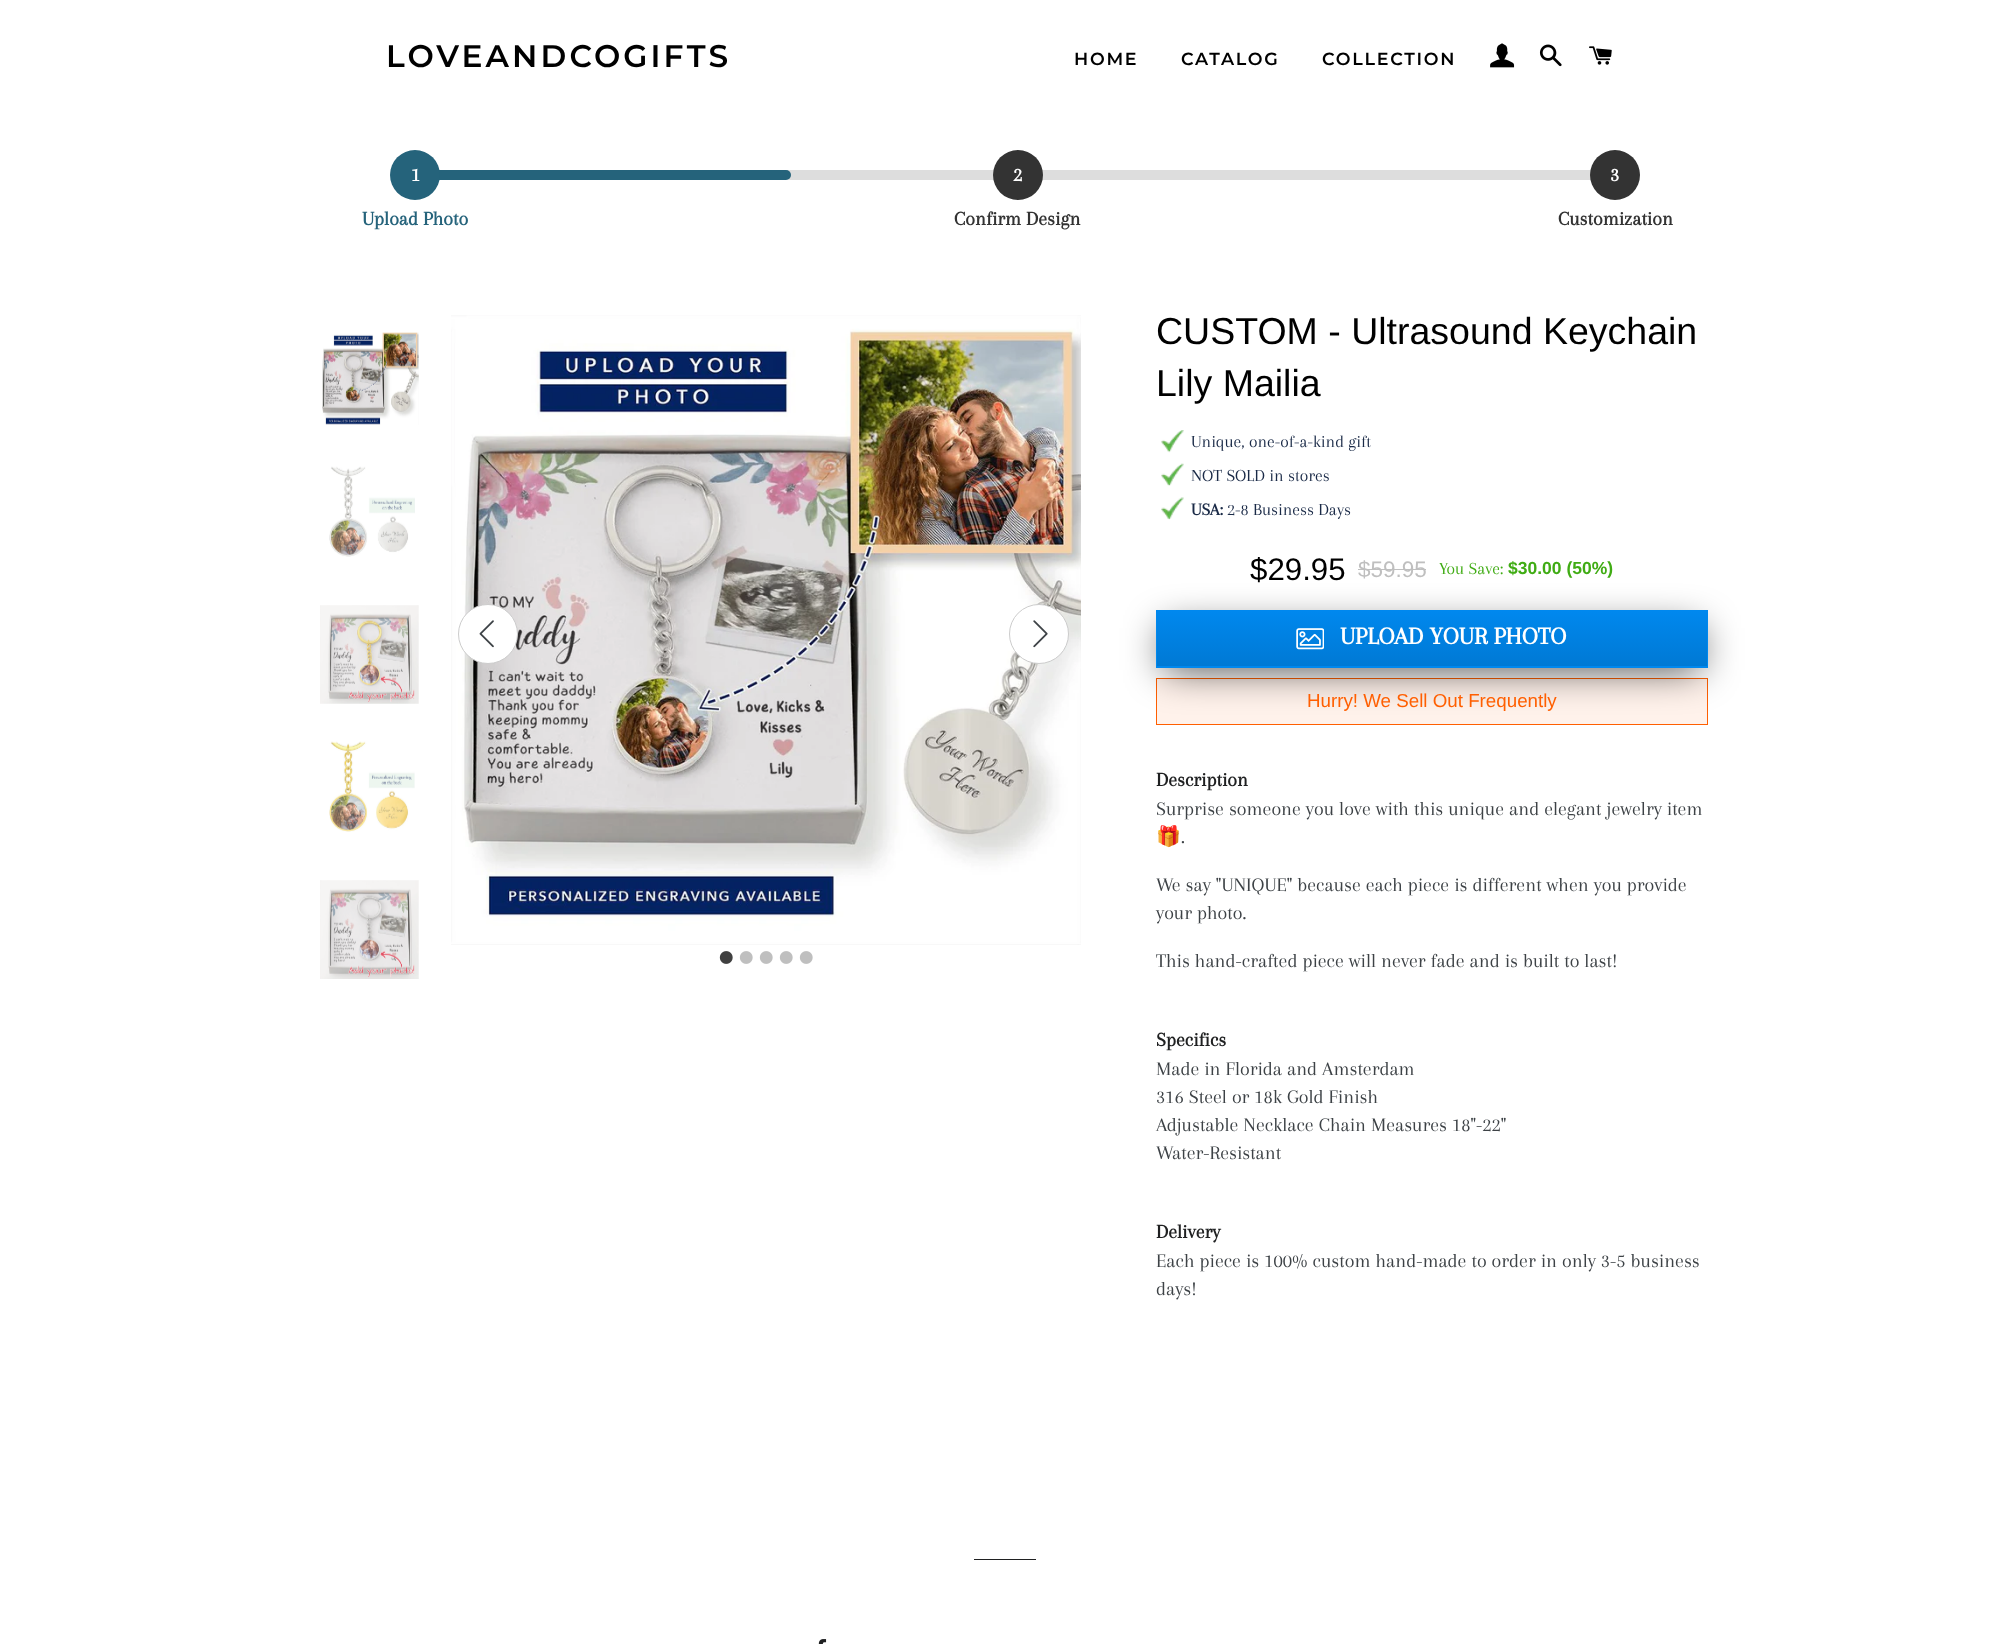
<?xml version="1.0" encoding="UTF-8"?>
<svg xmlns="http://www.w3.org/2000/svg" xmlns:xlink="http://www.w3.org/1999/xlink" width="2010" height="1644">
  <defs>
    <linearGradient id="g1" gradientUnits="userSpaceOnUse" x1="1432" y1="666" x2="1432" y2="611"><stop offset="0" stop-color="#0079d4" /><stop offset="1" stop-color="#0088ee" /></linearGradient>
    <linearGradient id="g2" gradientUnits="userSpaceOnUse" x1="1432" y1="721" x2="1432" y2="666"><stop offset="0" stop-color="#0079d4" /><stop offset="1" stop-color="#0088ee" /></linearGradient>
  </defs>
  <rect width="100%" height="100%" fill="#ffffff" />
  <image x="1490" y="43" width="25" height="25" xlink:href="image1.png" />
  <image x="1539" y="44" width="23" height="23" xlink:href="image2.png" />
  <image x="1589" y="46" width="23" height="19" xlink:href="image3.png" />
  <rect x="786" y="170" width="805" height="10" fill="#dddddd" />
  <rect x="363" y="170" width="428" height="10" rx="5" fill="#25637b" />
  <rect x="363" y="170" width="28" height="10" fill="#ffffff" />
  <circle cx="415" cy="175" r="25" fill="#25637b" />
  <circle cx="1018" cy="175" r="25" fill="#333333" />
  <circle cx="1615" cy="175" r="25" fill="#333333" />
  <image x="322" y="332" width="97" height="93" xlink:href="image4.png" />
  <image x="329" y="466" width="86" height="91" xlink:href="image5.png" />
  <image x="320" y="605" width="99" height="99" xlink:href="image6.png" />
  <image x="329" y="741" width="86" height="91" xlink:href="image7.png" />
  <image x="320" y="880" width="99" height="99" xlink:href="image8.png" />
  <image x="451" y="315" width="630" height="630" xlink:href="image9.png" />
  <circle cx="488" cy="634" r="29.5" fill="#ffffff" stroke="#cccccc" />
  <image x="479" y="620" width="15" height="28" xlink:href="image10.png" />
  <circle cx="1039" cy="634" r="29.5" fill="#ffffff" stroke="#cccccc" />
  <image x="1033" y="620" width="15" height="28" xlink:href="image11.png" />
  <image x="719" y="951" width="14" height="13" xlink:href="image12.png" />
  <image x="739" y="951" width="14" height="13" xlink:href="image13.png" />
  <image x="759" y="951" width="14" height="13" xlink:href="image13.png" />
  <image x="779" y="951" width="14" height="13" xlink:href="image13.png" />
  <image x="799" y="951" width="14" height="13" xlink:href="image13.png" />
  <image x="1161" y="430" width="23" height="23" xlink:href="image14.png" />
  <image x="1161" y="463" width="23" height="23" xlink:href="image15.png" />
  <image x="1161" y="497" width="23" height="23" xlink:href="image16.png" />
  <rect x="1358" y="569" width="68" height="1" fill="#bfbfbf" />
  <rect x="1156.5" y="678.5" width="551" height="46" fill="#fff2eb" stroke="#ff5f01" />
  <rect x="1164" y="628" width="536" height="42" fill="#000000" fill-opacity="0.7" filter="blur(19px)" />
  <rect x="1157" y="611" width="550" height="55" fill="url(#g1)" />
  <rect x="1156" y="666" width="552" height="1" fill="url(#g2)" />
  <rect x="1156.5" y="610.5" width="551" height="57" fill="none" stroke="#0088ee" />
  <image x="1296" y="628" width="28" height="22" xlink:href="image17.png" />
  <rect x="974" y="1559" width="62" height="1" fill="#1f2021" />
  <image x="818" y="1639" width="9" height="5" xlink:href="image18.png" />
  <text x="386" y="67" style="font-family: Montserrat; font-size: 31.25px; font-weight: 600; letter-spacing: 3.1px; fill: #000000">LOVEANDCOGIFTS</text>
  <text x="1074" y="65" style="font-family: Montserrat; font-size: 17.5px; font-weight: 600; letter-spacing: 1.75px; fill: #000000">HOME</text>
  <text x="1181" y="65" style="font-family: Montserrat; font-size: 17.5px; font-weight: 600; letter-spacing: 1.75px; fill: #000000">CATALOG</text>
  <text x="1322" y="65" style="font-family: Montserrat; font-size: 17.5px; font-weight: 600; letter-spacing: 1.75px; fill: #000000">COLLECTION</text>
  <text x="411" y="181" style="font-family: Arapey; font-size: 20px; font-weight: bold; fill: #ffffff">1</text>
  <text x="362" y="225" style="font-family: Arapey; font-size: 20px; font-weight: bold; fill: #25637b">Upload Photo</text>
  <text x="1013" y="181" style="font-family: Arapey; font-size: 20px; font-weight: bold; fill: #ffffff">2</text>
  <text x="954" y="225" style="font-family: Arapey; font-size: 20px; font-weight: bold; fill: #333333">Confirm Design</text>
  <text x="1610" y="181" style="font-family: Arapey; font-size: 20px; font-weight: bold; fill: #ffffff">3</text>
  <text x="1558" y="225" style="font-family: Arapey; font-size: 20px; font-weight: bold; fill: #333333">Customization</text>
  <text x="1156" y="344" style="font-family: Liberation Sans; font-size: 37.5px; fill: #000000">CUSTOM - Ultrasound Keychain</text>
  <text x="1156" y="396" style="font-family: Liberation Sans; font-size: 37.5px; fill: #000000">Lily Mailia</text>
  <text x="1191" y="447" style="font-family: Arapey; font-size: 17.5px; fill: #1a2a47">Unique, one-of-a-kind gift</text>
  <text x="1191" y="481" style="font-family: Arapey; font-size: 17.5px; fill: #1a2a47">NOT SOLD in stores</text>
  <text x="1191" y="515" style="font-family: Arapey; font-size: 17.5px; font-weight: bold; fill: #1a2a47">USA:</text>
  <text x="1227" y="515" style="font-family: Arapey; font-size: 17.5px; fill: #1a2a47">2-8 Business Days</text>
  <text x="1250" y="580" style="font-family: Liberation Sans; font-size: 31.25px; fill: #000000">$29.95</text>
  <text x="1358" y="577" style="font-family: Liberation Sans; font-size: 22.5px; fill: #bfbfbf">$59.95</text>
  <text x="1439" y="574" style="font-family: Arapey; font-size: 17.5px; fill: #40ac14">You Save:</text>
  <text x="1508" y="574" style="font-family: Liberation Sans; font-size: 17.5px; font-weight: bold; fill: #40ac14">$30.00 (50%)</text>
  <text x="1340" y="644" style="font-family: Arapey; font-size: 25px; font-weight: bold; fill: #ffffff">UPLOAD YOUR PHOTO</text>
  <text x="1307" y="707" style="font-family: Liberation Sans; font-size: 18.75px; fill: #ff5f01">Hurry! We Sell Out Frequently</text>
  <text x="1156" y="786" style="font-family: Arapey; font-size: 20px; font-weight: bold; fill: #1f2021">Description</text>
  <text x="1156" y="815" style="font-family: Arapey; font-size: 20px; fill: #3d4246">Surprise someone you love with this unique and elegant jewelry item</text>
  <text x="1156" y="843" style="font-family: Noto Color Emoji; font-size: 20px; fill: #3d4246">🎁</text>
  <text x="1181" y="843" style="font-family: Arapey; font-size: 20px; fill: #3d4246">.</text>
  <text x="1156" y="891" style="font-family: Arapey; font-size: 20px; fill: #3d4246">We say "UNIQUE" because each piece is different when you provide</text>
  <text x="1156" y="919" style="font-family: Arapey; font-size: 20px; fill: #3d4246">your photo.</text>
  <text x="1156" y="967" style="font-family: Arapey; font-size: 20px; fill: #3d4246">This hand-crafted piece will never fade and is built to last!</text>
  <text x="1156" y="1046" style="font-family: Arapey; font-size: 20px; font-weight: bold; fill: #1f2021">Specifics</text>
  <text x="1156" y="1075" style="font-family: Arapey; font-size: 20px; fill: #3d4246">Made in Florida and Amsterdam</text>
  <text x="1156" y="1103" style="font-family: Arapey; font-size: 20px; fill: #3d4246">316 Steel or 18k Gold Finish</text>
  <text x="1156" y="1131" style="font-family: Arapey; font-size: 20px; fill: #3d4246">Adjustable Necklace Chain Measures 18"-22"</text>
  <text x="1156" y="1159" style="font-family: Arapey; font-size: 20px; fill: #3d4246">Water-Resistant</text>
  <text x="1156" y="1238" style="font-family: Arapey; font-size: 20px; font-weight: bold; fill: #1f2021">Delivery</text>
  <text x="1156" y="1267" style="font-family: Arapey; font-size: 20px; fill: #3d4246">Each piece is 100% custom hand-made to order in only 3-5 business</text>
  <text x="1156" y="1295" style="font-family: Arapey; font-size: 20px; fill: #3d4246">days!</text>
</svg>
